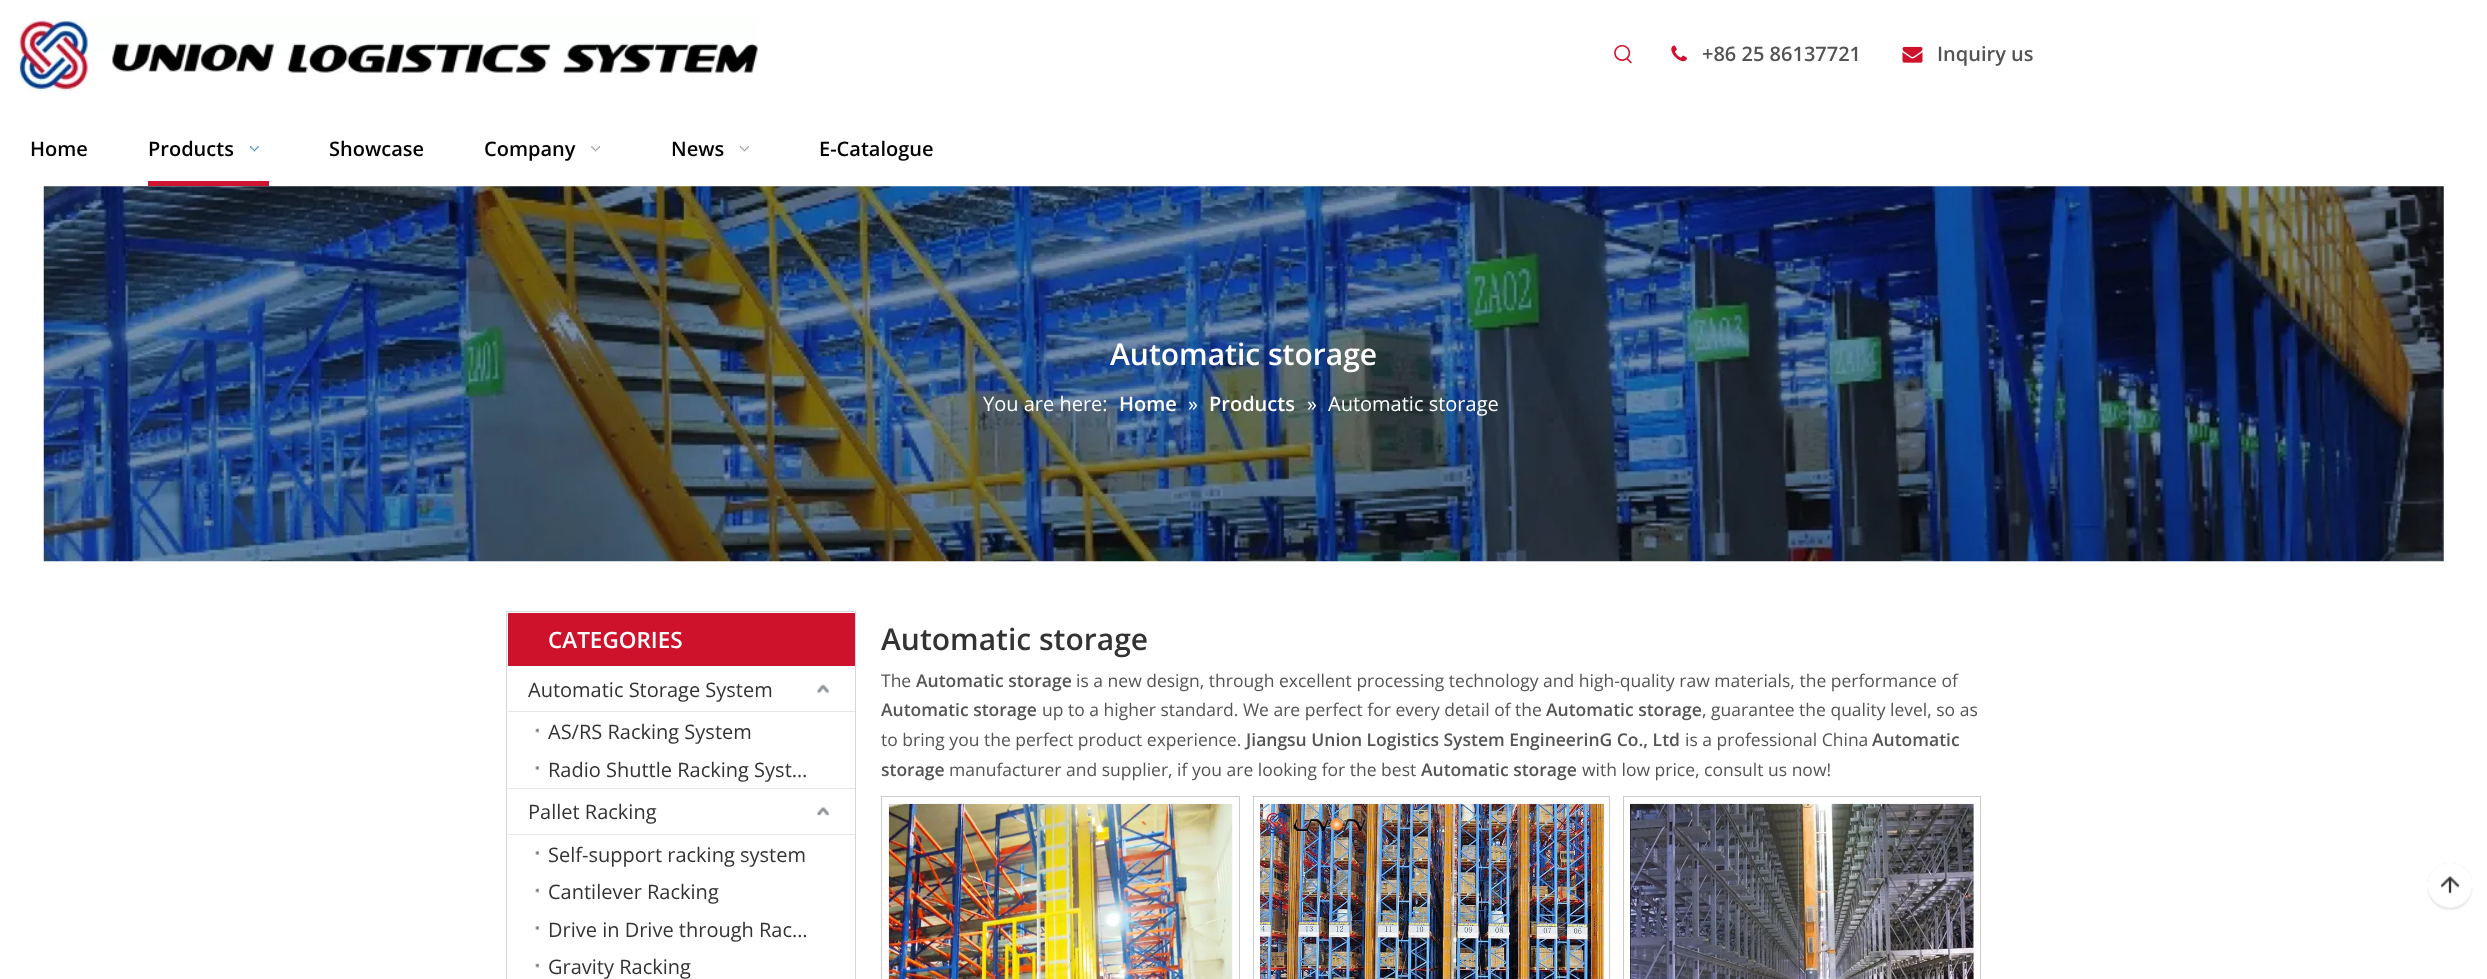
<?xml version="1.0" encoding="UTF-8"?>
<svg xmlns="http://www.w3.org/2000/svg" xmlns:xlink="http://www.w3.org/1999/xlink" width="2487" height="979">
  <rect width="100%" height="100%" fill="#ffffff" />
  <image x="15" y="17" width="743" height="76" xlink:href="image1.png" />
  <image x="1614" y="44" width="18" height="20" xlink:href="image2.png" />
  <image x="1671" y="45" width="16" height="17" xlink:href="image3.png" />
  <image x="1902" y="46" width="21" height="17" xlink:href="image4.png" />
  <rect x="148" y="181" width="121" height="5" fill="#cf1431" />
  <image x="250" y="146" width="9" height="6" xlink:href="image5.png" />
  <image x="591" y="146" width="9" height="6" xlink:href="image6.png" />
  <image x="740" y="146" width="9" height="6" xlink:href="image7.png" />
  <image x="43" y="186" width="2401" height="376" xlink:href="image8.png" />
  <rect x="506.5" y="611.5" width="349" height="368" fill="none" stroke="#d6d6d6" />
  <rect x="508" y="613" width="347" height="53" fill="#ce122c" />
  <rect x="508" y="711" width="347" height="1" fill="#e7e7e7" />
  <image x="817" y="684" width="12" height="9" xlink:href="image9.png" />
  <image x="535" y="728" width="4" height="5" xlink:href="image10.png" />
  <image x="535" y="766" width="4" height="4" xlink:href="image11.png" />
  <rect x="508" y="788" width="347" height="1" fill="#e7e7e7" />
  <rect x="508" y="834" width="347" height="1" fill="#e7e7e7" />
  <image x="817" y="807" width="12" height="9" xlink:href="image12.png" />
  <image x="535" y="851" width="4" height="4" xlink:href="image11.png" />
  <image x="535" y="888" width="4" height="5" xlink:href="image10.png" />
  <image x="535" y="926" width="4" height="4" xlink:href="image11.png" />
  <image x="535" y="963" width="4" height="5" xlink:href="image10.png" />
  <rect x="881.5" y="796.5" width="358" height="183" fill="none" stroke="#cccccc" />
  <image x="888" y="803" width="345" height="176" xlink:href="image13.png" />
  <rect x="1253.5" y="796.5" width="356" height="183" fill="none" stroke="#cccccc" />
  <image x="1260" y="803" width="344" height="176" xlink:href="image14.png" />
  <rect x="1623.5" y="796.5" width="357" height="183" fill="none" stroke="#cccccc" />
  <image x="1630" y="803" width="344" height="176" xlink:href="image15.png" />
  <image x="2427" y="862" width="46" height="48" xlink:href="image16.png" />
  <text x="1702" y="61" style="font-family: Open Sans; font-size: 20px; font-weight: 600; fill: #545454">+86 25 86137721</text>
  <text x="1937" y="61" style="font-family: Open Sans; font-size: 20px; font-weight: 600; fill: #545454">Inquiry us</text>
  <text x="30" y="156" style="font-family: Open Sans; font-size: 20px; font-weight: 600; fill: #000000">Home</text>
  <text x="148" y="156" style="font-family: Open Sans; font-size: 20px; font-weight: 600; fill: #000000">Products</text>
  <text x="329" y="156" style="font-family: Open Sans; font-size: 20px; font-weight: 600; fill: #000000">Showcase</text>
  <text x="484" y="156" style="font-family: Open Sans; font-size: 20px; font-weight: 600; fill: #000000">Company</text>
  <text x="671" y="156" style="font-family: Open Sans; font-size: 20px; font-weight: 600; fill: #000000">News</text>
  <text x="819" y="156" style="font-family: Open Sans; font-size: 20px; font-weight: 600; fill: #000000">E-Catalogue</text>
  <text x="1110" y="365" style="font-family: Open Sans; font-size: 30px; font-weight: 600; fill: #ffffff">Automatic storage</text>
  <text x="983" y="411" style="font-family: Open Sans; font-size: 20px; fill: #ffffff">You are here:</text>
  <text x="1119" y="411" style="font-family: Open Sans; font-size: 20px; font-weight: 600; fill: #ffffff">Home</text>
  <text x="1188" y="411" style="font-family: Open Sans; font-size: 20px; fill: #ffffff">»</text>
  <text x="1209" y="411" style="font-family: Open Sans; font-size: 20px; font-weight: 600; fill: #ffffff">Products</text>
  <text x="1307" y="411" style="font-family: Open Sans; font-size: 20px; fill: #ffffff">»</text>
  <text x="1328" y="411" style="font-family: Open Sans; font-size: 20px; fill: #ffffff">Automatic storage</text>
  <text x="548" y="648" style="font-family: Open Sans; font-size: 22.5px; font-weight: 600; fill: #ffffff">CATEGORIES</text>
  <text x="528" y="697" style="font-family: Open Sans; font-size: 20px; fill: #333333">Automatic Storage System</text>
  <text x="548" y="739" style="font-family: Open Sans; font-size: 20px; fill: #333333">AS/RS Racking System</text>
  <text x="548" y="777" style="font-family: Open Sans; font-size: 20px; fill: #333333">Radio Shuttle Racking Syst…</text>
  <text x="528" y="819" style="font-family: Open Sans; font-size: 20px; fill: #333333">Pallet Racking</text>
  <text x="548" y="862" style="font-family: Open Sans; font-size: 20px; fill: #333333">Self-support racking system</text>
  <text x="548" y="899" style="font-family: Open Sans; font-size: 20px; fill: #333333">Cantilever Racking</text>
  <text x="548" y="937" style="font-family: Open Sans; font-size: 20px; fill: #333333">Drive in Drive through Rac…</text>
  <text x="548" y="974" style="font-family: Open Sans; font-size: 20px; fill: #333333">Gravity Racking</text>
  <text x="881" y="650" style="font-family: Open Sans; font-size: 30px; font-weight: 600; fill: #333333">Automatic storage</text>
  <text x="881" y="687" style="font-family: Open Sans; font-size: 17.5px; fill: #545454">The</text>
  <text x="916" y="687" style="font-family: Open Sans; font-size: 17.5px; font-weight: 600; fill: #545454">Automatic storage</text>
  <text x="1076" y="687" style="font-family: Open Sans; font-size: 17.5px; fill: #545454">is a new design, through excellent processing technology and high-quality raw materials, the performance of</text>
  <text x="881" y="716" style="font-family: Open Sans; font-size: 17.5px; font-weight: 600; fill: #545454">Automatic storage</text>
  <text x="1042" y="716" style="font-family: Open Sans; font-size: 17.5px; fill: #545454">up to a higher standard. We are perfect for every detail of the</text>
  <text x="1546" y="716" style="font-family: Open Sans; font-size: 17.5px; font-weight: 600; fill: #545454">Automatic storage</text>
  <text x="1702" y="716" style="font-family: Open Sans; font-size: 17.5px; fill: #545454">, guarantee the quality level, so as</text>
  <text x="881" y="746" style="font-family: Open Sans; font-size: 17.5px; fill: #545454">to bring you the perfect product experience.</text>
  <text x="1246" y="746" style="font-family: Open Sans; font-size: 17.5px; font-weight: 600; fill: #545454">Jiangsu Union Logistics System EngineerinG Co., Ltd</text>
  <text x="1685" y="746" style="font-family: Open Sans; font-size: 17.5px; fill: #545454">is a professional China</text>
  <text x="1872" y="746" style="font-family: Open Sans; font-size: 17.5px; font-weight: 600; fill: #545454">Automatic</text>
  <text x="881" y="776" style="font-family: Open Sans; font-size: 17.5px; font-weight: 600; fill: #545454">storage</text>
  <text x="949" y="776" style="font-family: Open Sans; font-size: 17.5px; fill: #545454">manufacturer and supplier, if you are looking for the best</text>
  <text x="1421" y="776" style="font-family: Open Sans; font-size: 17.5px; font-weight: 600; fill: #545454">Automatic storage</text>
  <text x="1582" y="776" style="font-family: Open Sans; font-size: 17.5px; fill: #545454">with low price, consult us now!</text>
</svg>
